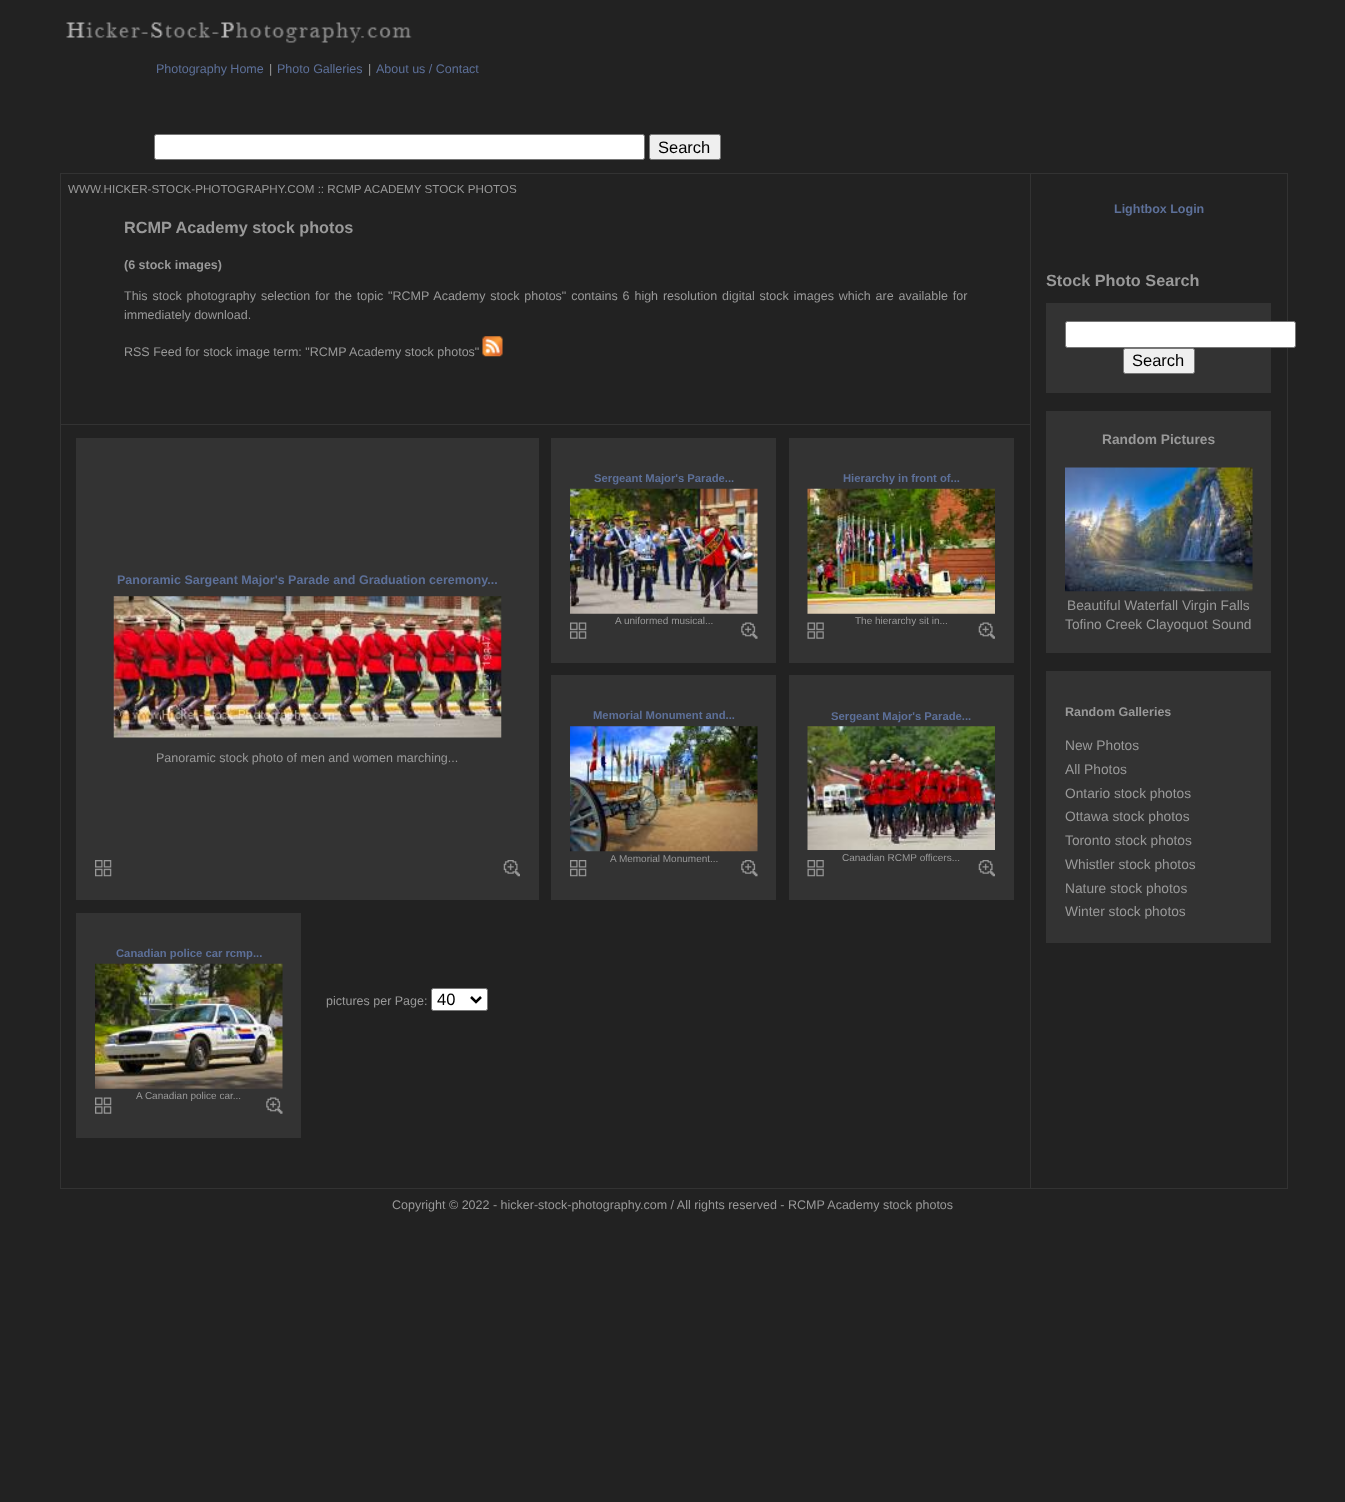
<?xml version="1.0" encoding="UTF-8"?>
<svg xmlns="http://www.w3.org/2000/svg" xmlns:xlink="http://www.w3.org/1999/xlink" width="1345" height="1502">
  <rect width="100%" height="100%" fill="#222222" />
  <image x="66" y="22" width="346" height="21" xlink:href="image1.png" />
  <rect x="154.5" y="134.5" width="490" height="25" rx="2" fill="#ffffff" stroke="#767676" />
  <rect x="649.5" y="134.5" width="71" height="25" rx="2" fill="#efefef" stroke="#767676" />
  <rect x="60.5" y="173.5" width="1227" height="1015" fill="none" stroke="#333333" />
  <rect x="1030" y="174" width="1" height="1014" fill="#333333" />
  <image x="482" y="336" width="21" height="21" xlink:href="image2.png" />
  <rect x="61" y="424" width="969" height="1" fill="#333333" />
  <rect x="551" y="438" width="225" height="225" fill="#333333" />
  <image x="570" y="488" width="188" height="126" xlink:href="image3.png" />
  <image x="570" y="622" width="17" height="17" xlink:href="image4.png" />
  <image x="741" y="622" width="17" height="17" xlink:href="image5.png" />
  <rect x="789" y="438" width="225" height="225" fill="#333333" />
  <image x="807" y="488" width="188" height="126" xlink:href="image6.png" />
  <image x="807" y="622" width="17" height="17" xlink:href="image7.png" />
  <image x="978" y="622" width="17" height="17" xlink:href="image8.png" />
  <rect x="76" y="438" width="463" height="462" fill="#333333" />
  <image x="113" y="596" width="389" height="142" xlink:href="image9.png" />
  <image x="95" y="860" width="17" height="17" xlink:href="image10.png" />
  <image x="503" y="860" width="17" height="17" xlink:href="image11.png" />
  <rect x="551" y="675" width="225" height="225" fill="#333333" />
  <image x="570" y="726" width="188" height="126" xlink:href="image12.png" />
  <image x="570" y="860" width="17" height="17" xlink:href="image13.png" />
  <image x="741" y="860" width="17" height="17" xlink:href="image14.png" />
  <rect x="789" y="675" width="225" height="225" fill="#333333" />
  <image x="807" y="726" width="188" height="124" xlink:href="image15.png" />
  <image x="807" y="860" width="17" height="17" xlink:href="image16.png" />
  <image x="978" y="860" width="17" height="17" xlink:href="image17.png" />
  <rect x="76" y="913" width="225" height="225" fill="#333333" />
  <image x="95" y="963" width="188" height="126" xlink:href="image18.png" />
  <image x="95" y="1097" width="17" height="17" xlink:href="image19.png" />
  <image x="266" y="1097" width="17" height="17" xlink:href="image5.png" />
  <rect x="431.5" y="988.5" width="56" height="22" rx="2" fill="#ffffff" stroke="#767676" />
  <path d="M 471 997 l 5 5 l 5 -5" fill="none" stroke="#000000" stroke-width="2.5" />
  <rect x="1046" y="303" width="225" height="90" fill="#333333" />
  <rect x="1065.5" y="321.5" width="230" height="26" rx="2" fill="#ffffff" stroke="#767676" />
  <rect x="1123.5" y="348.5" width="71" height="25" rx="2" fill="#efefef" stroke="#767676" />
  <rect x="1046" y="411" width="225" height="242" fill="#333333" />
  <image x="1065" y="467" width="188" height="125" xlink:href="image20.png" />
  <rect x="1046" y="671" width="225" height="272" fill="#333333" />
  <text x="156" y="73" style="font-family: Liberation Sans; font-size: 12.5px; fill: #5d7099">Photography Home</text>
  <text x="269" y="73" style="font-family: Liberation Sans; font-size: 12.5px; fill: #999999">|</text>
  <text x="277" y="73" style="font-family: Liberation Sans; font-size: 12.5px; fill: #5d7099">Photo Galleries</text>
  <text x="368" y="73" style="font-family: Liberation Sans; font-size: 12.5px; fill: #999999">|</text>
  <text x="376" y="73" style="font-family: Liberation Sans; font-size: 12.5px; fill: #5d7099">About us / Contact</text>
  <text x="658" y="153" style="font-family: Liberation Sans; font-size: 16.5px; fill: #000000">Search</text>
  <text x="68" y="193" style="font-family: Liberation Sans; font-size: 11.65px; fill: #999999">WWW.HICKER-STOCK-PHOTOGRAPHY.COM :: RCMP ACADEMY STOCK PHOTOS</text>
  <text x="124" y="233" style="font-family: Liberation Sans; font-size: 16.25px; font-weight: bold; fill: #999999">RCMP Academy stock photos</text>
  <text x="124" y="269" style="font-family: Liberation Sans; font-size: 12.5px; font-weight: bold; fill: #999999">(6 stock images)</text>
  <text x="124" y="300" word-spacing="1.4" style="font-family: Liberation Sans; font-size: 12.5px; fill: #999999">This stock photography selection for the topic "RCMP Academy stock photos" contains 6 high resolution digital stock images which are available for</text>
  <text x="124" y="319" style="font-family: Liberation Sans; font-size: 12.5px; fill: #999999">immediately download.</text>
  <text x="124" y="356" style="font-family: Liberation Sans; font-size: 12.5px; fill: #999999">RSS Feed for stock image term: "RCMP Academy stock photos"</text>
  <text x="594" y="482" style="font-family: Liberation Sans; font-size: 11.25px; font-weight: bold; fill: #5d7099">Sergeant Major's Parade...</text>
  <text x="615" y="624" style="font-family: Liberation Sans; font-size: 10px; fill: #999999">A uniformed musical...</text>
  <text x="843" y="482" style="font-family: Liberation Sans; font-size: 11.25px; font-weight: bold; fill: #5d7099">Hierarchy in front of...</text>
  <text x="855" y="624" style="font-family: Liberation Sans; font-size: 10px; fill: #999999">The hierarchy sit in...</text>
  <text x="117" y="584" style="font-family: Liberation Sans; font-size: 12.5px; font-weight: bold; fill: #5d7099">Panoramic Sargeant Major's Parade and Graduation ceremony...</text>
  <text x="156" y="762" style="font-family: Liberation Sans; font-size: 12.5px; fill: #999999">Panoramic stock photo of men and women marching...</text>
  <text x="593" y="719" style="font-family: Liberation Sans; font-size: 11.25px; font-weight: bold; fill: #5d7099">Memorial Monument and...</text>
  <text x="610" y="862" style="font-family: Liberation Sans; font-size: 10px; fill: #999999">A Memorial Monument...</text>
  <text x="831" y="720" style="font-family: Liberation Sans; font-size: 11.25px; font-weight: bold; fill: #5d7099">Sergeant Major's Parade...</text>
  <text x="842" y="861" style="font-family: Liberation Sans; font-size: 10px; fill: #999999">Canadian RCMP officers...</text>
  <text x="116" y="957" style="font-family: Liberation Sans; font-size: 11.25px; font-weight: bold; fill: #5d7099">Canadian police car rcmp...</text>
  <text x="136" y="1099" style="font-family: Liberation Sans; font-size: 10px; fill: #999999">A Canadian police car...</text>
  <text x="326" y="1005" style="font-family: Liberation Sans; font-size: 12.5px; fill: #999999">pictures per Page:</text>
  <text x="437" y="1005" style="font-family: Liberation Sans; font-size: 16.5px; fill: #000000">40</text>
  <text x="1114" y="213" style="font-family: Liberation Sans; font-size: 12.5px; font-weight: bold; fill: #5d7099">Lightbox Login</text>
  <text x="1046" y="286" style="font-family: Liberation Sans; font-size: 16.25px; font-weight: bold; fill: #999999">Stock Photo Search</text>
  <text x="1132" y="366" style="font-family: Liberation Sans; font-size: 16.5px; fill: #000000">Search</text>
  <text x="1102" y="444" style="font-family: Liberation Sans; font-size: 13.75px; font-weight: bold; fill: #999999">Random Pictures</text>
  <text x="1067" y="610" style="font-family: Liberation Sans; font-size: 13.75px; fill: #999999">Beautiful Waterfall Virgin Falls</text>
  <text x="1065" y="629" style="font-family: Liberation Sans; font-size: 13.75px; fill: #999999">Tofino Creek Clayoquot Sound</text>
  <text x="1065" y="716" style="font-family: Liberation Sans; font-size: 12.5px; font-weight: bold; fill: #999999">Random Galleries</text>
  <text x="1065" y="750" style="font-family: Liberation Sans; font-size: 13.75px; fill: #999999">New Photos</text>
  <text x="1065" y="774" style="font-family: Liberation Sans; font-size: 13.75px; fill: #999999">All Photos</text>
  <text x="1065" y="798" style="font-family: Liberation Sans; font-size: 13.75px; fill: #999999">Ontario stock photos</text>
  <text x="1065" y="821" style="font-family: Liberation Sans; font-size: 13.75px; fill: #999999">Ottawa stock photos</text>
  <text x="1065" y="845" style="font-family: Liberation Sans; font-size: 13.75px; fill: #999999">Toronto stock photos</text>
  <text x="1065" y="869" style="font-family: Liberation Sans; font-size: 13.75px; fill: #999999">Whistler stock photos</text>
  <text x="1065" y="893" style="font-family: Liberation Sans; font-size: 13.75px; fill: #999999">Nature stock photos</text>
  <text x="1065" y="916" style="font-family: Liberation Sans; font-size: 13.75px; fill: #999999">Winter stock photos</text>
  <text x="392" y="1209" style="font-family: Liberation Sans; font-size: 12.5px; fill: #999999">Copyright © 2022 - hicker-stock-photography.com / All rights reserved - RCMP Academy stock photos</text>
</svg>
